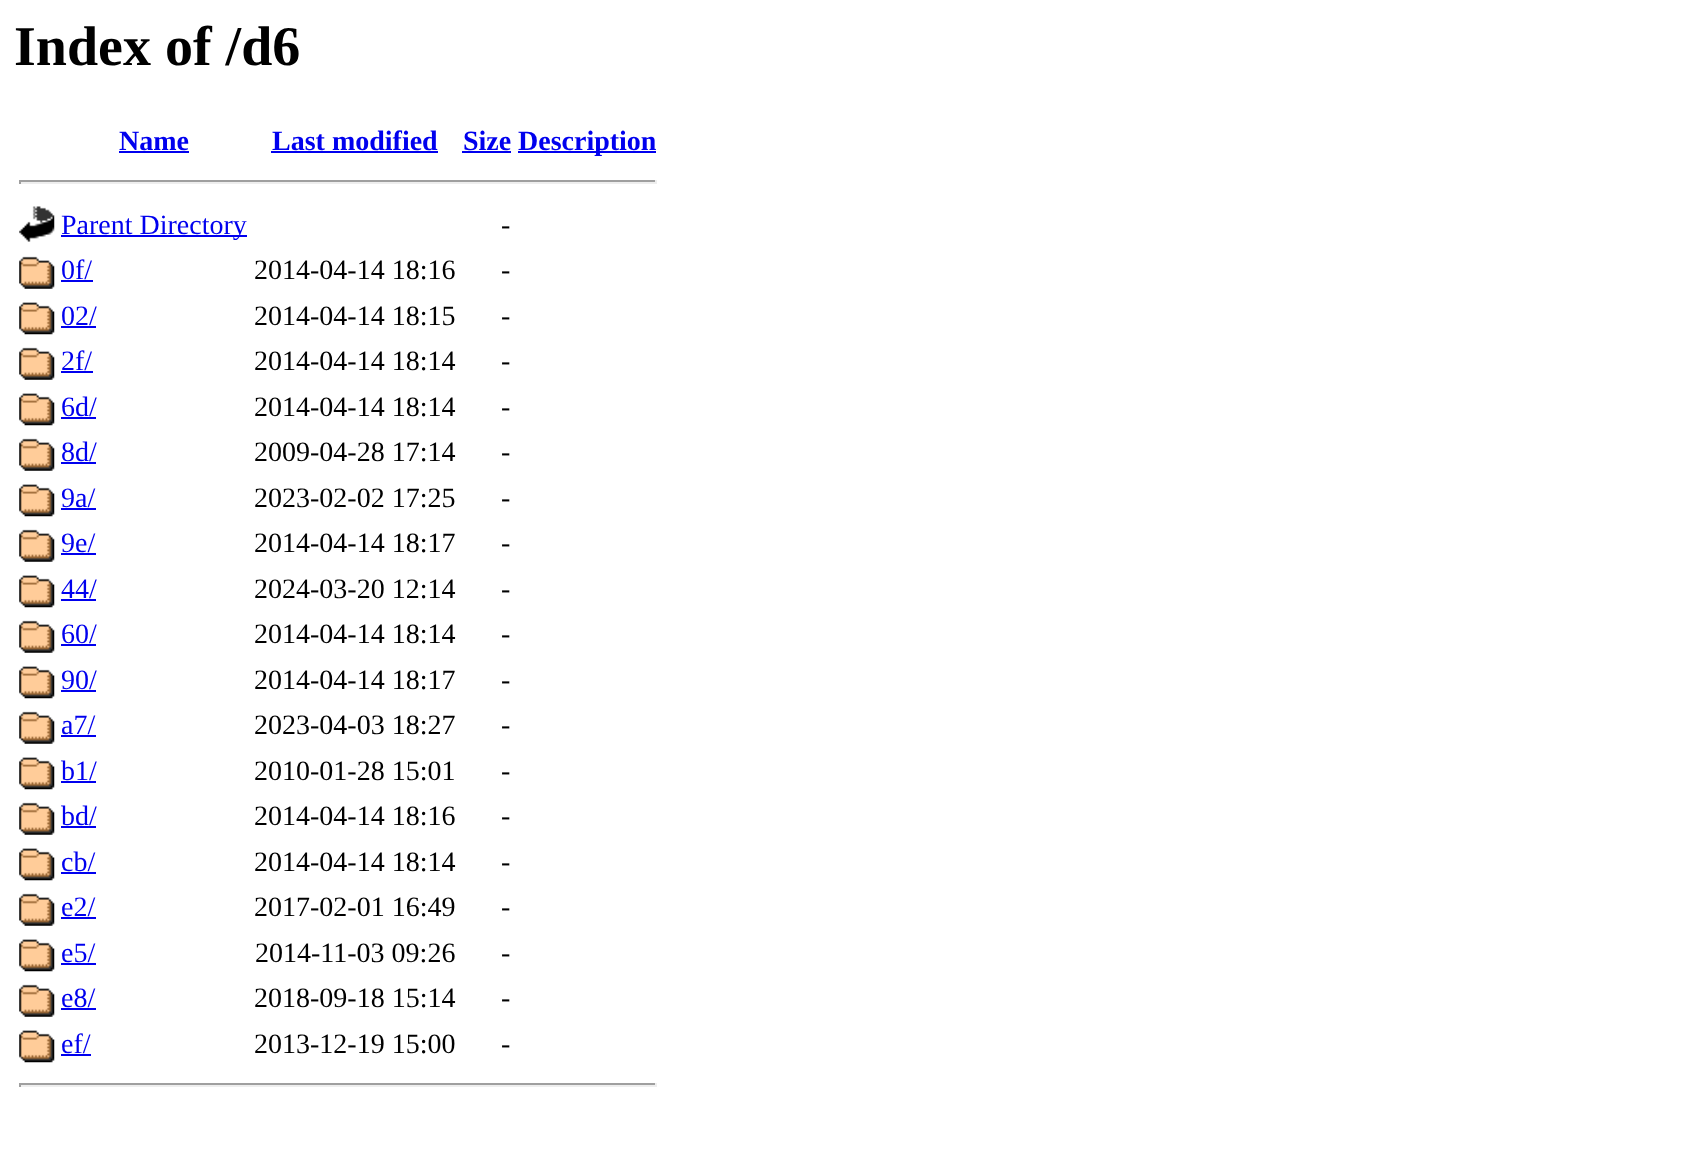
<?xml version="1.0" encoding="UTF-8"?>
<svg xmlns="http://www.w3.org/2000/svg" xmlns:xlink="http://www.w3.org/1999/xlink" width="1702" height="1160">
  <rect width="100%" height="100%" fill="#ffffff" />
  <rect x="119" y="151" width="70" height="2" fill="#0000ee" />
  <rect x="271" y="151" width="167" height="2" fill="#0000ee" />
  <rect x="462" y="151" width="49" height="2" fill="#0000ee" />
  <rect x="518" y="151" width="138" height="2" fill="#0000ee" />
  <rect x="19" y="180" width="637" height="2" fill="#9f9f9f" />
  <rect x="655" y="180" width="2" height="4" fill="#eeeeee" />
  <rect x="19" y="182" width="637" height="2" fill="#eeeeee" />
  <rect x="19" y="180" width="2" height="4" fill="#9f9f9f" />
  <image x="19" y="206" width="36" height="36" xlink:href="image1.png" />
  <rect x="61" y="235" width="186" height="2" fill="#0000ee" />
  <image x="19" y="256" width="36" height="33" xlink:href="image2.png" />
  <rect x="61" y="280" width="32" height="2" fill="#0000ee" />
  <image x="19" y="302" width="36" height="33" xlink:href="image3.png" />
  <rect x="61" y="326" width="35" height="2" fill="#0000ee" />
  <image x="19" y="347" width="36" height="33" xlink:href="image2.png" />
  <rect x="61" y="371" width="32" height="2" fill="#0000ee" />
  <image x="19" y="393" width="36" height="33" xlink:href="image3.png" />
  <rect x="61" y="417" width="35" height="2" fill="#0000ee" />
  <image x="19" y="438" width="36" height="33" xlink:href="image2.png" />
  <rect x="61" y="462" width="35" height="2" fill="#0000ee" />
  <image x="19" y="484" width="36" height="33" xlink:href="image3.png" />
  <rect x="61" y="508" width="35" height="2" fill="#0000ee" />
  <image x="19" y="529" width="36" height="33" xlink:href="image2.png" />
  <rect x="61" y="553" width="35" height="2" fill="#0000ee" />
  <image x="19" y="575" width="36" height="33" xlink:href="image3.png" />
  <rect x="61" y="599" width="35" height="2" fill="#0000ee" />
  <image x="19" y="620" width="36" height="33" xlink:href="image2.png" />
  <rect x="61" y="644" width="35" height="2" fill="#0000ee" />
  <image x="19" y="666" width="36" height="33" xlink:href="image3.png" />
  <rect x="61" y="690" width="35" height="2" fill="#0000ee" />
  <image x="19" y="711" width="36" height="33" xlink:href="image2.png" />
  <rect x="61" y="735" width="35" height="2" fill="#0000ee" />
  <image x="19" y="757" width="36" height="33" xlink:href="image3.png" />
  <rect x="61" y="781" width="35" height="2" fill="#0000ee" />
  <image x="19" y="802" width="36" height="33" xlink:href="image2.png" />
  <rect x="61" y="826" width="35" height="2" fill="#0000ee" />
  <image x="19" y="848" width="36" height="33" xlink:href="image3.png" />
  <rect x="61" y="872" width="35" height="2" fill="#0000ee" />
  <image x="19" y="893" width="36" height="33" xlink:href="image2.png" />
  <rect x="61" y="917" width="35" height="2" fill="#0000ee" />
  <image x="19" y="939" width="36" height="33" xlink:href="image3.png" />
  <rect x="61" y="963" width="35" height="2" fill="#0000ee" />
  <image x="19" y="984" width="36" height="33" xlink:href="image2.png" />
  <rect x="61" y="1008" width="35" height="2" fill="#0000ee" />
  <image x="19" y="1030" width="36" height="33" xlink:href="image3.png" />
  <rect x="61" y="1054" width="30" height="2" fill="#0000ee" />
  <rect x="19" y="1083" width="637" height="2" fill="#9f9f9f" />
  <rect x="655" y="1083" width="2" height="4" fill="#eeeeee" />
  <rect x="19" y="1085" width="637" height="2" fill="#eeeeee" />
  <rect x="19" y="1083" width="2" height="4" fill="#9f9f9f" />
  <text x="14" y="65" style="font-family: Liberation Serif; font-size: 56px; font-weight: bold; fill: #000000">Index of /d6</text>
  <text x="119" y="150" style="font-family: Liberation Serif; font-size: 28px; font-weight: bold; fill: #0000ee">Name</text>
  <text x="272" y="150" style="font-family: Liberation Serif; font-size: 28px; font-weight: bold; fill: #0000ee">Last modified</text>
  <text x="463" y="150" style="font-family: Liberation Serif; font-size: 28px; font-weight: bold; fill: #0000ee">Size</text>
  <text x="518" y="150" style="font-family: Liberation Serif; font-size: 28px; font-weight: bold; fill: #0000ee">Description</text>
  <text x="61" y="234" style="font-family: Liberation Serif; font-size: 28px; fill: #0000ee">Parent Directory</text>
  <text x="501" y="234" style="font-family: Liberation Serif; font-size: 28px; fill: #000000">-</text>
  <text x="61" y="279" style="font-family: Liberation Serif; font-size: 28px; fill: #0000ee">0f/</text>
  <text x="254" y="279" style="font-family: Liberation Serif; font-size: 28px; fill: #000000">2014-04-14 18:16</text>
  <text x="501" y="279" style="font-family: Liberation Serif; font-size: 28px; fill: #000000">-</text>
  <text x="61" y="325" style="font-family: Liberation Serif; font-size: 28px; fill: #0000ee">02/</text>
  <text x="254" y="325" style="font-family: Liberation Serif; font-size: 28px; fill: #000000">2014-04-14 18:15</text>
  <text x="501" y="325" style="font-family: Liberation Serif; font-size: 28px; fill: #000000">-</text>
  <text x="61" y="370" style="font-family: Liberation Serif; font-size: 28px; fill: #0000ee">2f/</text>
  <text x="254" y="370" style="font-family: Liberation Serif; font-size: 28px; fill: #000000">2014-04-14 18:14</text>
  <text x="501" y="370" style="font-family: Liberation Serif; font-size: 28px; fill: #000000">-</text>
  <text x="61" y="416" style="font-family: Liberation Serif; font-size: 28px; fill: #0000ee">6d/</text>
  <text x="254" y="416" style="font-family: Liberation Serif; font-size: 28px; fill: #000000">2014-04-14 18:14</text>
  <text x="501" y="416" style="font-family: Liberation Serif; font-size: 28px; fill: #000000">-</text>
  <text x="61" y="461" style="font-family: Liberation Serif; font-size: 28px; fill: #0000ee">8d/</text>
  <text x="254" y="461" style="font-family: Liberation Serif; font-size: 28px; fill: #000000">2009-04-28 17:14</text>
  <text x="501" y="461" style="font-family: Liberation Serif; font-size: 28px; fill: #000000">-</text>
  <text x="61" y="507" style="font-family: Liberation Serif; font-size: 28px; fill: #0000ee">9a/</text>
  <text x="254" y="507" style="font-family: Liberation Serif; font-size: 28px; fill: #000000">2023-02-02 17:25</text>
  <text x="501" y="507" style="font-family: Liberation Serif; font-size: 28px; fill: #000000">-</text>
  <text x="61" y="552" style="font-family: Liberation Serif; font-size: 28px; fill: #0000ee">9e/</text>
  <text x="254" y="552" style="font-family: Liberation Serif; font-size: 28px; fill: #000000">2014-04-14 18:17</text>
  <text x="501" y="552" style="font-family: Liberation Serif; font-size: 28px; fill: #000000">-</text>
  <text x="61" y="598" style="font-family: Liberation Serif; font-size: 28px; fill: #0000ee">44/</text>
  <text x="254" y="598" style="font-family: Liberation Serif; font-size: 28px; fill: #000000">2024-03-20 12:14</text>
  <text x="501" y="598" style="font-family: Liberation Serif; font-size: 28px; fill: #000000">-</text>
  <text x="61" y="643" style="font-family: Liberation Serif; font-size: 28px; fill: #0000ee">60/</text>
  <text x="254" y="643" style="font-family: Liberation Serif; font-size: 28px; fill: #000000">2014-04-14 18:14</text>
  <text x="501" y="643" style="font-family: Liberation Serif; font-size: 28px; fill: #000000">-</text>
  <text x="61" y="689" style="font-family: Liberation Serif; font-size: 28px; fill: #0000ee">90/</text>
  <text x="254" y="689" style="font-family: Liberation Serif; font-size: 28px; fill: #000000">2014-04-14 18:17</text>
  <text x="501" y="689" style="font-family: Liberation Serif; font-size: 28px; fill: #000000">-</text>
  <text x="61" y="734" style="font-family: Liberation Serif; font-size: 28px; fill: #0000ee">a7/</text>
  <text x="254" y="734" style="font-family: Liberation Serif; font-size: 28px; fill: #000000">2023-04-03 18:27</text>
  <text x="501" y="734" style="font-family: Liberation Serif; font-size: 28px; fill: #000000">-</text>
  <text x="61" y="780" style="font-family: Liberation Serif; font-size: 28px; fill: #0000ee">b1/</text>
  <text x="254" y="780" style="font-family: Liberation Serif; font-size: 28px; fill: #000000">2010-01-28 15:01</text>
  <text x="501" y="780" style="font-family: Liberation Serif; font-size: 28px; fill: #000000">-</text>
  <text x="61" y="825" style="font-family: Liberation Serif; font-size: 28px; fill: #0000ee">bd/</text>
  <text x="254" y="825" style="font-family: Liberation Serif; font-size: 28px; fill: #000000">2014-04-14 18:16</text>
  <text x="501" y="825" style="font-family: Liberation Serif; font-size: 28px; fill: #000000">-</text>
  <text x="61" y="871" style="font-family: Liberation Serif; font-size: 28px; fill: #0000ee">cb/</text>
  <text x="254" y="871" style="font-family: Liberation Serif; font-size: 28px; fill: #000000">2014-04-14 18:14</text>
  <text x="501" y="871" style="font-family: Liberation Serif; font-size: 28px; fill: #000000">-</text>
  <text x="61" y="916" style="font-family: Liberation Serif; font-size: 28px; fill: #0000ee">e2/</text>
  <text x="254" y="916" style="font-family: Liberation Serif; font-size: 28px; fill: #000000">2017-02-01 16:49</text>
  <text x="501" y="916" style="font-family: Liberation Serif; font-size: 28px; fill: #000000">-</text>
  <text x="61" y="962" style="font-family: Liberation Serif; font-size: 28px; fill: #0000ee">e5/</text>
  <text x="255" y="962" style="font-family: Liberation Serif; font-size: 28px; fill: #000000">2014-11-03 09:26</text>
  <text x="501" y="962" style="font-family: Liberation Serif; font-size: 28px; fill: #000000">-</text>
  <text x="61" y="1007" style="font-family: Liberation Serif; font-size: 28px; fill: #0000ee">e8/</text>
  <text x="254" y="1007" style="font-family: Liberation Serif; font-size: 28px; fill: #000000">2018-09-18 15:14</text>
  <text x="501" y="1007" style="font-family: Liberation Serif; font-size: 28px; fill: #000000">-</text>
  <text x="61" y="1053" style="font-family: Liberation Serif; font-size: 28px; fill: #0000ee">ef/</text>
  <text x="254" y="1053" style="font-family: Liberation Serif; font-size: 28px; fill: #000000">2013-12-19 15:00</text>
  <text x="501" y="1053" style="font-family: Liberation Serif; font-size: 28px; fill: #000000">-</text>
</svg>
